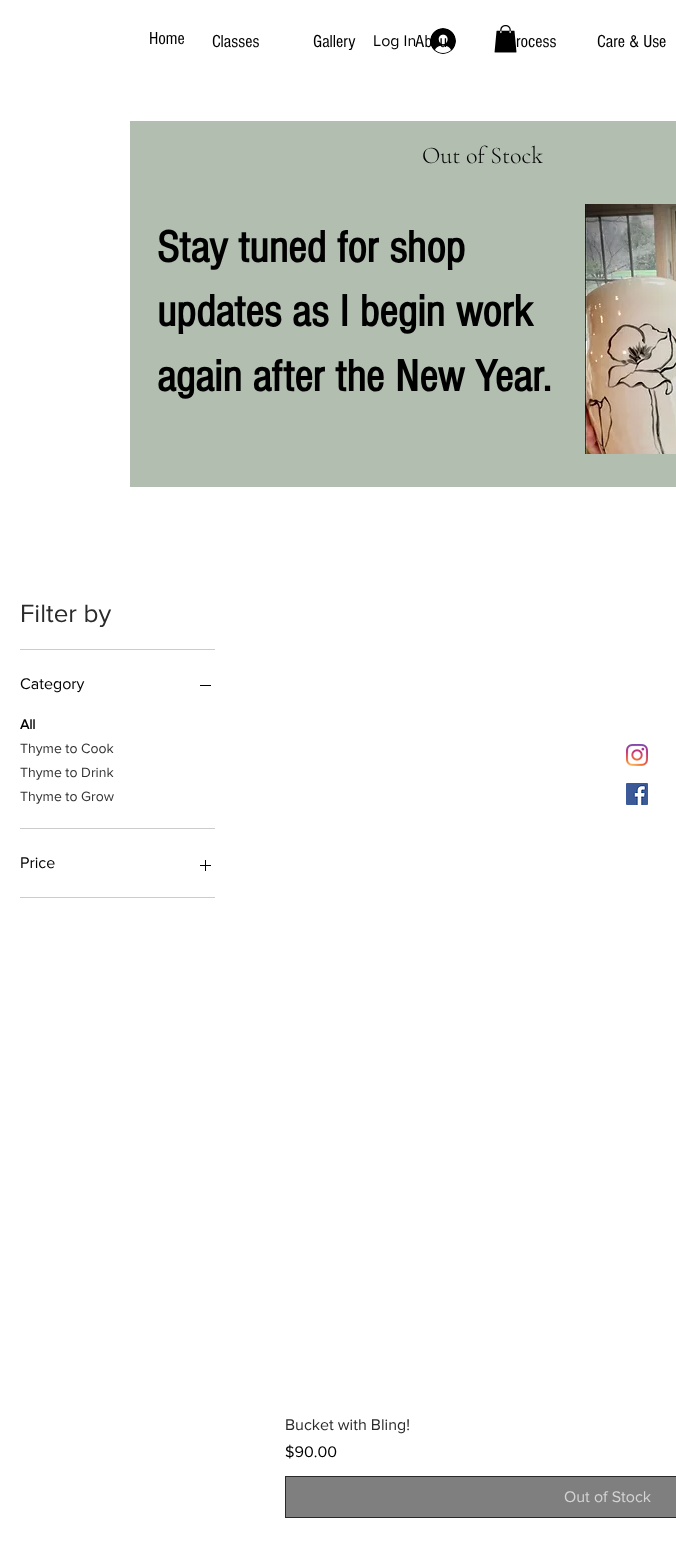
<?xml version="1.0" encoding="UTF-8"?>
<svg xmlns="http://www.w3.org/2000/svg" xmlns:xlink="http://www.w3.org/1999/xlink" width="676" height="1548">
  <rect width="100%" height="100%" fill="#ffffff" />
  <image x="494" y="25" width="23" height="28" xlink:href="image2.png" />
  <rect x="130" y="121" width="546" height="366" fill="#b2beb0" />
  <image x="585" y="204" width="91" height="250" xlink:href="image3.png" />
  <rect x="20" y="649" width="195" height="1" fill="#cccccc" />
  <rect x="20" y="828" width="195" height="1" fill="#cccccc" />
  <rect x="200" y="685" width="11" height="1" fill="#000000" />
  <rect x="20" y="897" width="195" height="1" fill="#cccccc" />
  <image x="200" y="860" width="11" height="11" xlink:href="image4.png" />
  <rect x="285.5" y="1476.5" width="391" height="41" fill="#7f7f7f" stroke="#2a2a2a" />
  <image x="626" y="744" width="22" height="22" xlink:href="image5.png" />
  <image x="626" y="783" width="22" height="22" xlink:href="image6.png" />
  <text x="149" y="44" style="font-family: 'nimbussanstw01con'; font-size: 18px; fill: #000000">Home</text>
  <text x="212" y="47" style="font-family: 'nimbussanstw01con'; font-size: 18px; fill: #000000">Classes</text>
  <text x="313" y="47" style="font-family: 'nimbussanstw01con'; font-size: 18px; fill: #000000">Gallery</text>
  <text x="415" y="47" style="font-family: 'nimbussanstw01con'; font-size: 18px; fill: #000000">Abou</text>
  <text x="516" y="47" style="font-family: 'nimbussanstw01con'; font-size: 18px; fill: #000000">rocess</text>
  <text x="597" y="47" style="font-family: 'nimbussanstw01con'; font-size: 18px; fill: #000000">Care &amp; Use</text>
  <text x="373" y="46" style="font-family: 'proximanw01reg'; font-size: 16px; fill: #000000">Log In</text>
  <image x="430" y="28" width="26" height="26" xlink:href="image1.png" />
  <text x="422" y="163" style="font-family: Cormorant Garamond; font-size: 24px; font-weight: 300; fill: #000000">Out of Stock</text>
  <text x="157" y="262" style="font-family: 'nimbussanstw01con'; font-size: 46px; font-weight: bold; fill: #000000">Stay tuned for shop</text>
  <text x="157" y="326" style="font-family: 'nimbussanstw01con'; font-size: 46px; font-weight: bold; fill: #000000">updates as I begin work</text>
  <text x="157" y="391" style="font-family: 'nimbussanstw01con'; font-size: 46px; font-weight: bold; fill: #000000">again after the New Year.</text>
  <text x="20" y="622" style="font-family: 'proximanw01reg'; font-size: 26px; fill: #2a2a2a">Filter by</text>
  <text x="20" y="689" style="font-family: 'proximanw01reg'; font-size: 16px; fill: #000000">Category</text>
  <text x="20" y="729" style="font-family: 'proximanw01reg'; font-size: 14px; font-weight: bold; fill: #000000">All</text>
  <text x="20" y="753" style="font-family: 'proximanw01reg'; font-size: 14px; fill: #333333">Thyme to Cook</text>
  <text x="20" y="777" style="font-family: 'proximanw01reg'; font-size: 14px; fill: #333333">Thyme to Drink</text>
  <text x="20" y="801" style="font-family: 'proximanw01reg'; font-size: 14px; fill: #333333">Thyme to Grow</text>
  <text x="20" y="868" style="font-family: 'proximanw01reg'; font-size: 16px; fill: #000000">Price</text>
  <text x="285" y="1430" style="font-family: 'proximanw01reg'; font-size: 16px; fill: #2a2a2a">Bucket with Bling!</text>
  <text x="285" y="1457" style="font-family: 'proximanw01reg'; font-size: 16px; fill: #000000">$90.00</text>
  <text x="564" y="1502" style="font-family: 'proximanw01reg'; font-size: 16px; fill: #d4d4d4">Out of Stock</text>
</svg>
